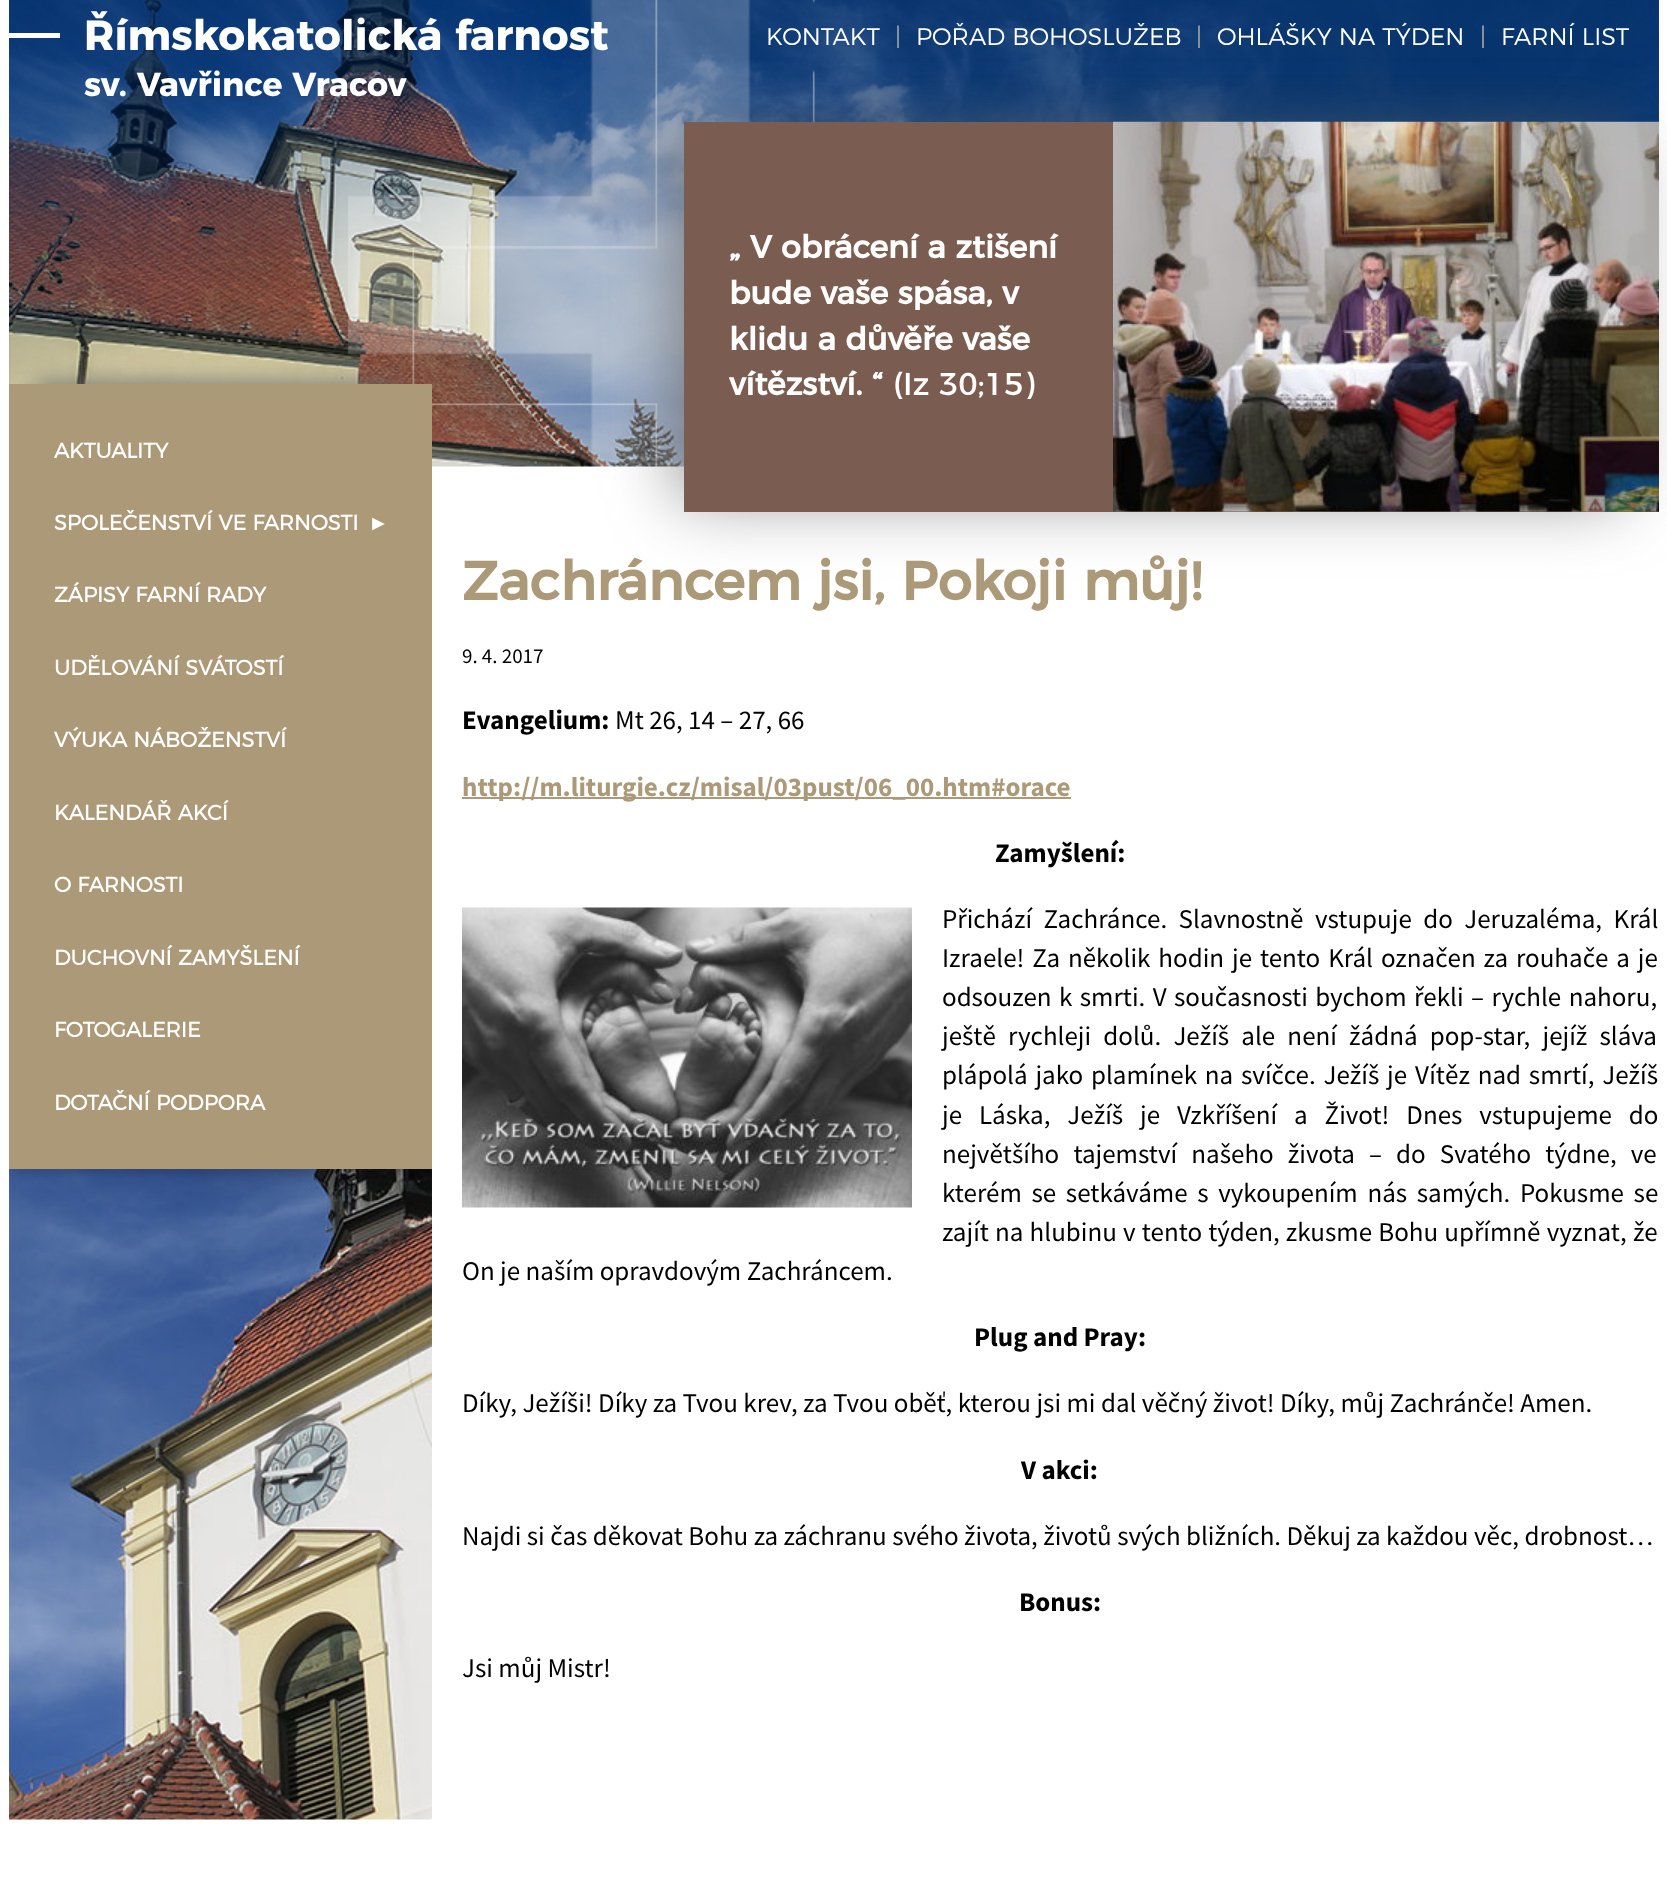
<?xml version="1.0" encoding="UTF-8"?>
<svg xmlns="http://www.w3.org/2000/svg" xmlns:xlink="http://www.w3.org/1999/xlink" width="1667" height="1901">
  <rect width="100%" height="100%" fill="#ffffff" />
  <image x="9" y="0" width="1650" height="467" xlink:href="image1.png" />
  <rect x="9" y="33" width="51" height="5" fill="#ffffff" />
  <rect x="678" y="138" width="945" height="360" fill="#666666" fill-opacity="0.75" filter="blur(34.5px)" />
  <rect x="684" y="122" width="975" height="390" fill="#7a5c50" />
  <image x="1113" y="121" width="546" height="391" xlink:href="image2.png" />
  <rect x="36" y="381" width="369" height="1382" fill="#666666" fill-opacity="0.75" filter="blur(11px)" />
  <rect x="9" y="384" width="423" height="785" fill="#ac9978" />
  <image x="9" y="1169" width="423" height="651" xlink:href="image3.png" />
  <rect x="462" y="797" width="609" height="2" fill="#ac9978" />
  <image x="462" y="907" width="450" height="301" xlink:href="image4.png" />
  <text x="84" y="50" style="font-family: Montserrat; font-size: 42px; font-weight: bold; fill: #ffffff">Římskokatolická farnost</text>
  <text x="84" y="96" style="font-family: Montserrat; font-size: 33px; font-weight: bold; fill: #ffffff">sv. Vavřince Vracov</text>
  <text x="766" y="45" style="font-family: Montserrat; font-size: 24px; font-weight: 300; fill: #ffffff">KONTAKT</text>
  <text x="895" y="45" style="font-family: Montserrat; font-size: 24px; font-weight: 300; fill: #aaaaaa">|</text>
  <text x="916" y="45" style="font-family: Montserrat; font-size: 24px; font-weight: 300; fill: #ffffff">POŘAD BOHOSLUŽEB</text>
  <text x="1196" y="45" style="font-family: Montserrat; font-size: 24px; font-weight: 300; fill: #aaaaaa">|</text>
  <text x="1217" y="45" style="font-family: Montserrat; font-size: 24px; font-weight: 300; fill: #ffffff">OHLÁŠKY NA TÝDEN</text>
  <text x="1480" y="45" style="font-family: Montserrat; font-size: 24px; font-weight: 300; fill: #aaaaaa">|</text>
  <text x="1501" y="45" style="font-family: Montserrat; font-size: 24px; font-weight: 300; fill: #ffffff">FARNÍ LIST</text>
  <text x="729" y="258" style="font-family: 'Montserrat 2'; font-size: 31.5px; font-weight: bold; fill: #ffffff">„ V obrácení a ztišení</text>
  <text x="729" y="304" style="font-family: 'Montserrat 2'; font-size: 31.5px; font-weight: bold; fill: #ffffff">bude vaše spása, v</text>
  <text x="729" y="350" style="font-family: 'Montserrat 2'; font-size: 31.5px; font-weight: bold; fill: #ffffff">klidu a důvěře vaše</text>
  <text x="729" y="395" style="font-family: 'Montserrat 2'; font-size: 31.5px; font-weight: bold; fill: #ffffff">vítězství. “</text>
  <text x="893" y="395" style="font-family: Montserrat; font-size: 31.5px; fill: #ffffff">(Iz 30;15)</text>
  <text x="54" y="458" style="font-family: 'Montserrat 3'; font-size: 21px; font-weight: bold; fill: #ffffff">AKTUALITY</text>
  <text x="54" y="530" style="font-family: 'Montserrat 3'; font-size: 21px; font-weight: bold; fill: #ffffff">SPOLEČENSTVÍ VE FARNOSTI</text>
  <text x="368" y="530" style="font-family: Liberation Sans; font-size: 21px; font-weight: bold; fill: #ffffff">►</text>
  <text x="54" y="602" style="font-family: 'Montserrat 3'; font-size: 21px; font-weight: bold; fill: #ffffff">ZÁPISY FARNÍ RADY</text>
  <text x="54" y="675" style="font-family: 'Montserrat 3'; font-size: 21px; font-weight: bold; fill: #ffffff">UDĚLOVÁNÍ SVÁTOSTÍ</text>
  <text x="54" y="747" style="font-family: 'Montserrat 3'; font-size: 21px; font-weight: bold; fill: #ffffff">VÝUKA NÁBOŽENSTVÍ</text>
  <text x="54" y="820" style="font-family: 'Montserrat 3'; font-size: 21px; font-weight: bold; fill: #ffffff">KALENDÁŘ AKCÍ</text>
  <text x="54" y="892" style="font-family: 'Montserrat 3'; font-size: 21px; font-weight: bold; fill: #ffffff">O FARNOSTI</text>
  <text x="54" y="965" style="font-family: 'Montserrat 3'; font-size: 21px; font-weight: bold; fill: #ffffff">DUCHOVNÍ ZAMYŠLENÍ</text>
  <text x="54" y="1037" style="font-family: 'Montserrat 3'; font-size: 21px; font-weight: bold; fill: #ffffff">FOTOGALERIE</text>
  <text x="54" y="1110" style="font-family: 'Montserrat 3'; font-size: 21px; font-weight: bold; fill: #ffffff">DOTAČNÍ PODPORA</text>
  <text x="462" y="600" style="font-family: 'Montserrat 2'; font-size: 54px; font-weight: bold; fill: #ac9978">Zachráncem jsi, Pokoji můj!</text>
  <text x="462" y="663" style="font-family: Source Sans Pro; font-size: 21px; fill: #000000">9. 4. 2017</text>
  <text x="462" y="729" style="font-family: Source Sans Pro; font-size: 27px; font-weight: bold; fill: #000000">Evangelium:</text>
  <text x="615" y="729" style="font-family: Source Sans Pro; font-size: 27px; fill: #000000">Mt 26, 14 – 27, 66</text>
  <text x="462" y="796" style="font-family: Source Sans Pro; font-size: 27px; font-weight: bold; fill: #ac9978">http://m.liturgie.cz/misal/03pust/06_00.htm#orace</text>
  <text x="995" y="862" style="font-family: Source Sans Pro; font-size: 27px; font-weight: bold; fill: #000000">Zamyšlení:</text>
  <text x="942" y="928" word-spacing="6" style="font-family: Source Sans Pro; font-size: 27px; fill: #000000">Přichází Zachránce. Slavnostně vstupuje do Jeruzaléma, Král</text>
  <text x="942" y="967" word-spacing="2.5" style="font-family: Source Sans Pro; font-size: 27px; fill: #000000">Izraele! Za několik hodin je tento Král označen za rouhače a je</text>
  <text x="942" y="1006" word-spacing="2" style="font-family: Source Sans Pro; font-size: 27px; fill: #000000">odsouzen k smrti. V současnosti bychom řekli – rychle nahoru,</text>
  <text x="942" y="1045" word-spacing="6.75" style="font-family: Source Sans Pro; font-size: 27px; fill: #000000">ještě rychleji dolů. Ježíš ale není žádná pop-star, jejíž sláva</text>
  <text x="942" y="1084" word-spacing="2.4" style="font-family: Source Sans Pro; font-size: 27px; fill: #000000">plápolá jako plamínek na svíčce. Ježíš je Vítěz nad smrtí, Ježíš</text>
  <text x="942" y="1124" word-spacing="11.5" style="font-family: Source Sans Pro; font-size: 27px; fill: #000000">je Láska, Ježíš je Vzkříšení a Život! Dnes vstupujeme do</text>
  <text x="942" y="1163" word-spacing="8.75" style="font-family: Source Sans Pro; font-size: 27px; fill: #000000">největšího tajemství našeho života – do Svatého týdne, ve</text>
  <text x="942" y="1202" word-spacing="4.25" style="font-family: Source Sans Pro; font-size: 27px; fill: #000000">kterém se setkáváme s vykoupením nás samých. Pokusme se</text>
  <text x="942" y="1241" word-spacing="0.75" style="font-family: Source Sans Pro; font-size: 27px; fill: #000000">zajít na hlubinu v tento týden, zkusme Bohu upřímně vyznat, že</text>
  <text x="462" y="1280" style="font-family: Source Sans Pro; font-size: 27px; fill: #000000">On je naším opravdovým Zachráncem.</text>
  <text x="974" y="1346" style="font-family: Source Sans Pro; font-size: 27px; font-weight: bold; fill: #000000">Plug and Pray:</text>
  <text x="462" y="1412" style="font-family: Source Sans Pro; font-size: 27px; fill: #000000">Díky, Ježíši! Díky za Tvou krev, za Tvou oběť, kterou jsi mi dal věčný život! Díky, můj Zachránče! Amen.</text>
  <text x="1021" y="1479" style="font-family: Source Sans Pro; font-size: 27px; font-weight: bold; fill: #000000">V akci:</text>
  <text x="462" y="1545" style="font-family: Source Sans Pro; font-size: 27px; fill: #000000">Najdi si čas děkovat Bohu za záchranu svého života, životů svých bližních. Děkuj za každou věc, drobnost…</text>
  <text x="1019" y="1611" style="font-family: Source Sans Pro; font-size: 27px; font-weight: bold; fill: #000000">Bonus:</text>
  <text x="462" y="1677" style="font-family: Source Sans Pro; font-size: 27px; fill: #000000">Jsi můj Mistr!</text>
</svg>
